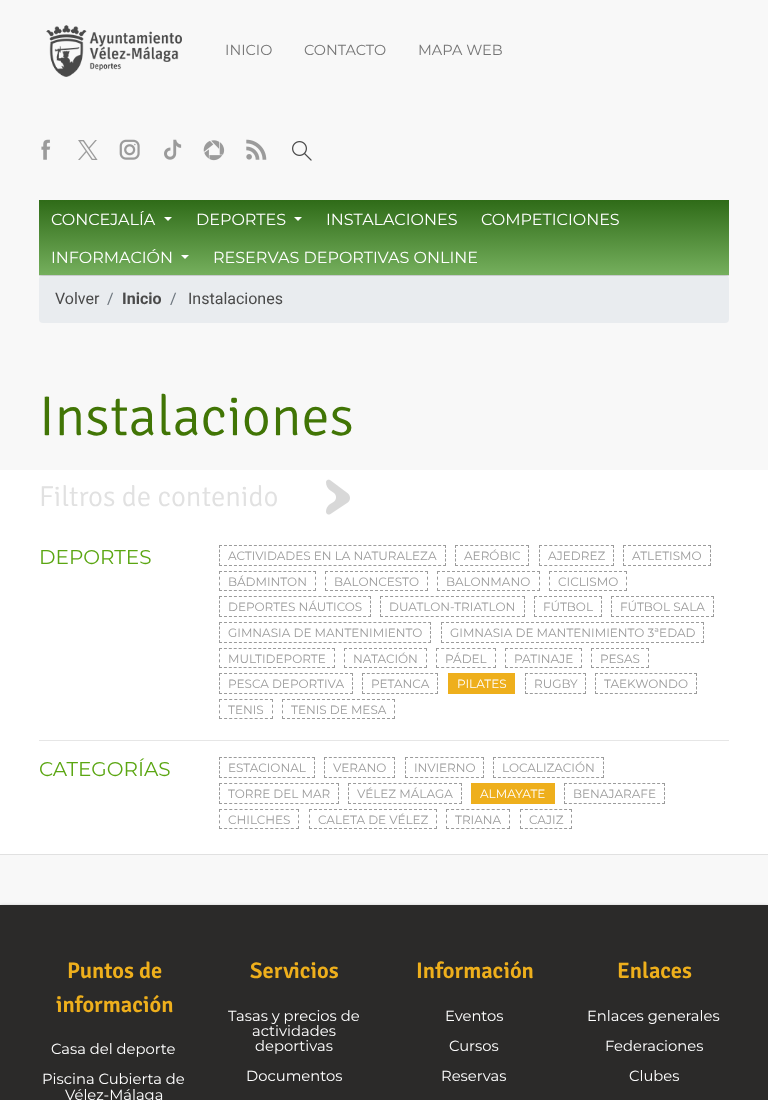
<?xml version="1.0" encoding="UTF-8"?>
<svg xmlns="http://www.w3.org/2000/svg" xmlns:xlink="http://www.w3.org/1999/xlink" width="768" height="1100">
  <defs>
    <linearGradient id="g1" gradientUnits="userSpaceOnUse" x1="384" y1="275" x2="384" y2="200"><stop offset="0" stop-color="#75af5d" /><stop offset="1" stop-color="#2f6b18" /></linearGradient>
  </defs>
  <rect width="100%" height="100%" fill="#f8f8f8" />
  <image x="46" y="25" width="136" height="52" xlink:href="image1.png" />
  <image x="41" y="139" width="10" height="21" xlink:href="image2.png" />
  <image x="78" y="140" width="20" height="20" xlink:href="image3.png" />
  <image x="119" y="139" width="21" height="21" xlink:href="image4.png" />
  <image x="164" y="139" width="18" height="21" xlink:href="image5.png" />
  <image x="203" y="140" width="22" height="21" xlink:href="image6.png" />
  <image x="246" y="139" width="21" height="21" xlink:href="image7.png" />
  <image x="292" y="141" width="20" height="20" xlink:href="image8.png" />
  <rect x="39" y="275" width="690" height="48" rx="4" fill="#e9ecef" />
  <rect x="39" y="201" width="690" height="75" fill="#000000" fill-opacity="0.14" filter="blur(0.5px)" />
  <rect x="39" y="200" width="690" height="75" fill="url(#g1)" />
  <path d="M 164 217 h 8 l -4 4 z" fill="#ffffff" />
  <path d="M 294 217 h 8 l -4 4 z" fill="#ffffff" />
  <path d="M 181 255 h 8 l -4 4 z" fill="#ffffff" />
  <rect y="470" width="768" height="384" fill="#ffffff" />
  <rect y="854" width="768" height="1" fill="#e1e1e1" />
  <image x="326" y="479" width="24" height="36" xlink:href="image9.png" />
  <path d="M 219 545.5 h 227" fill="none" stroke="#9b9b9b" stroke-dasharray="3 1.98" />
  <path d="M 445.5 545 v 21" fill="none" stroke="#9b9b9b" stroke-dasharray="3 1.5" />
  <path d="M 219 565.5 h 227" fill="none" stroke="#9b9b9b" stroke-dasharray="3 1.98" />
  <path d="M 219.5 545 v 21" fill="none" stroke="#9b9b9b" stroke-dasharray="3 1.5" />
  <path d="M 455 545.5 h 74" fill="none" stroke="#9b9b9b" stroke-dasharray="3 2.07" />
  <path d="M 528.5 545 v 21" fill="none" stroke="#9b9b9b" stroke-dasharray="3 1.5" />
  <path d="M 455 565.5 h 74" fill="none" stroke="#9b9b9b" stroke-dasharray="3 2.07" />
  <path d="M 455.5 545 v 21" fill="none" stroke="#9b9b9b" stroke-dasharray="3 1.5" />
  <path d="M 539 545.5 h 75" fill="none" stroke="#9b9b9b" stroke-dasharray="3 2.14" />
  <path d="M 613.5 545 v 21" fill="none" stroke="#9b9b9b" stroke-dasharray="3 1.5" />
  <path d="M 539 565.5 h 75" fill="none" stroke="#9b9b9b" stroke-dasharray="3 2.14" />
  <path d="M 539.5 545 v 21" fill="none" stroke="#9b9b9b" stroke-dasharray="3 1.5" />
  <path d="M 623 545.5 h 88" fill="none" stroke="#9b9b9b" stroke-dasharray="3 2" />
  <path d="M 710.5 545 v 21" fill="none" stroke="#9b9b9b" stroke-dasharray="3 1.5" />
  <path d="M 623 565.5 h 88" fill="none" stroke="#9b9b9b" stroke-dasharray="3 2" />
  <path d="M 623.5 545 v 21" fill="none" stroke="#9b9b9b" stroke-dasharray="3 1.5" />
  <path d="M 219 571.5 h 97" fill="none" stroke="#9b9b9b" stroke-dasharray="3 1.95" />
  <path d="M 315.5 571 v 20" fill="none" stroke="#9b9b9b" stroke-dasharray="3 2.67" />
  <path d="M 219 590.5 h 97" fill="none" stroke="#9b9b9b" stroke-dasharray="3 1.95" />
  <path d="M 219.5 571 v 20" fill="none" stroke="#9b9b9b" stroke-dasharray="3 2.67" />
  <path d="M 325 571.5 h 103" fill="none" stroke="#9b9b9b" stroke-dasharray="3 2" />
  <path d="M 427.5 571 v 20" fill="none" stroke="#9b9b9b" stroke-dasharray="3 2.67" />
  <path d="M 325 590.5 h 103" fill="none" stroke="#9b9b9b" stroke-dasharray="3 2" />
  <path d="M 325.5 571 v 20" fill="none" stroke="#9b9b9b" stroke-dasharray="3 2.67" />
  <path d="M 437 571.5 h 103" fill="none" stroke="#9b9b9b" stroke-dasharray="3 2" />
  <path d="M 539.5 571 v 20" fill="none" stroke="#9b9b9b" stroke-dasharray="3 2.67" />
  <path d="M 437 590.5 h 103" fill="none" stroke="#9b9b9b" stroke-dasharray="3 2" />
  <path d="M 437.5 571 v 20" fill="none" stroke="#9b9b9b" stroke-dasharray="3 2.67" />
  <path d="M 549 571.5 h 78" fill="none" stroke="#9b9b9b" stroke-dasharray="3 2" />
  <path d="M 626.5 571 v 20" fill="none" stroke="#9b9b9b" stroke-dasharray="3 2.67" />
  <path d="M 549 590.5 h 78" fill="none" stroke="#9b9b9b" stroke-dasharray="3 2" />
  <path d="M 549.5 571 v 20" fill="none" stroke="#9b9b9b" stroke-dasharray="3 2.67" />
  <path d="M 219 596.5 h 152" fill="none" stroke="#9b9b9b" stroke-dasharray="3 1.97" />
  <path d="M 370.5 596 v 21" fill="none" stroke="#9b9b9b" stroke-dasharray="3 1.5" />
  <path d="M 219 616.5 h 152" fill="none" stroke="#9b9b9b" stroke-dasharray="3 1.97" />
  <path d="M 219.5 596 v 21" fill="none" stroke="#9b9b9b" stroke-dasharray="3 1.5" />
  <path d="M 380 596.5 h 145" fill="none" stroke="#9b9b9b" stroke-dasharray="3 2.07" />
  <path d="M 524.5 596 v 21" fill="none" stroke="#9b9b9b" stroke-dasharray="3 1.5" />
  <path d="M 380 616.5 h 145" fill="none" stroke="#9b9b9b" stroke-dasharray="3 2.07" />
  <path d="M 380.5 596 v 21" fill="none" stroke="#9b9b9b" stroke-dasharray="3 1.5" />
  <path d="M 534 596.5 h 68" fill="none" stroke="#9b9b9b" stroke-dasharray="3 2" />
  <path d="M 601.5 596 v 21" fill="none" stroke="#9b9b9b" stroke-dasharray="3 1.5" />
  <path d="M 534 616.5 h 68" fill="none" stroke="#9b9b9b" stroke-dasharray="3 2" />
  <path d="M 534.5 596 v 21" fill="none" stroke="#9b9b9b" stroke-dasharray="3 1.5" />
  <path d="M 611 596.5 h 103" fill="none" stroke="#9b9b9b" stroke-dasharray="3 2" />
  <path d="M 713.5 596 v 21" fill="none" stroke="#9b9b9b" stroke-dasharray="3 1.5" />
  <path d="M 611 616.5 h 103" fill="none" stroke="#9b9b9b" stroke-dasharray="3 2" />
  <path d="M 611.5 596 v 21" fill="none" stroke="#9b9b9b" stroke-dasharray="3 1.5" />
  <path d="M 219 622.5 h 212" fill="none" stroke="#9b9b9b" stroke-dasharray="3 1.98" />
  <path d="M 430.5 622 v 21" fill="none" stroke="#9b9b9b" stroke-dasharray="3 1.5" />
  <path d="M 219 642.5 h 212" fill="none" stroke="#9b9b9b" stroke-dasharray="3 1.98" />
  <path d="M 219.5 622 v 21" fill="none" stroke="#9b9b9b" stroke-dasharray="3 1.5" />
  <path d="M 441 622.5 h 263" fill="none" stroke="#9b9b9b" stroke-dasharray="3 2" />
  <path d="M 703.5 622 v 21" fill="none" stroke="#9b9b9b" stroke-dasharray="3 1.5" />
  <path d="M 441 642.5 h 263" fill="none" stroke="#9b9b9b" stroke-dasharray="3 2" />
  <path d="M 441.5 622 v 21" fill="none" stroke="#9b9b9b" stroke-dasharray="3 1.5" />
  <path d="M 219 648.5 h 116" fill="none" stroke="#9b9b9b" stroke-dasharray="3 1.91" />
  <path d="M 334.5 648 v 20" fill="none" stroke="#9b9b9b" stroke-dasharray="3 2.67" />
  <path d="M 219 667.5 h 116" fill="none" stroke="#9b9b9b" stroke-dasharray="3 1.91" />
  <path d="M 219.5 648 v 20" fill="none" stroke="#9b9b9b" stroke-dasharray="3 2.67" />
  <path d="M 344 648.5 h 83" fill="none" stroke="#9b9b9b" stroke-dasharray="3 2" />
  <path d="M 426.5 648 v 20" fill="none" stroke="#9b9b9b" stroke-dasharray="3 2.67" />
  <path d="M 344 667.5 h 83" fill="none" stroke="#9b9b9b" stroke-dasharray="3 2" />
  <path d="M 344.5 648 v 20" fill="none" stroke="#9b9b9b" stroke-dasharray="3 2.67" />
  <path d="M 436 648.5 h 60" fill="none" stroke="#9b9b9b" stroke-dasharray="3 2.18" />
  <path d="M 495.5 648 v 20" fill="none" stroke="#9b9b9b" stroke-dasharray="3 2.67" />
  <path d="M 436 667.5 h 60" fill="none" stroke="#9b9b9b" stroke-dasharray="3 2.18" />
  <path d="M 436.5 648 v 20" fill="none" stroke="#9b9b9b" stroke-dasharray="3 2.67" />
  <path d="M 505 648.5 h 77" fill="none" stroke="#9b9b9b" stroke-dasharray="3 1.93" />
  <path d="M 581.5 648 v 20" fill="none" stroke="#9b9b9b" stroke-dasharray="3 2.67" />
  <path d="M 505 667.5 h 77" fill="none" stroke="#9b9b9b" stroke-dasharray="3 1.93" />
  <path d="M 505.5 648 v 20" fill="none" stroke="#9b9b9b" stroke-dasharray="3 2.67" />
  <path d="M 591 648.5 h 58" fill="none" stroke="#9b9b9b" stroke-dasharray="3 2" />
  <path d="M 648.5 648 v 20" fill="none" stroke="#9b9b9b" stroke-dasharray="3 2.67" />
  <path d="M 591 667.5 h 58" fill="none" stroke="#9b9b9b" stroke-dasharray="3 2" />
  <path d="M 591.5 648 v 20" fill="none" stroke="#9b9b9b" stroke-dasharray="3 2.67" />
  <path d="M 219 673.5 h 134" fill="none" stroke="#9b9b9b" stroke-dasharray="3 2.04" />
  <path d="M 352.5 673 v 21" fill="none" stroke="#9b9b9b" stroke-dasharray="3 1.5" />
  <path d="M 219 693.5 h 134" fill="none" stroke="#9b9b9b" stroke-dasharray="3 2.04" />
  <path d="M 219.5 673 v 21" fill="none" stroke="#9b9b9b" stroke-dasharray="3 1.5" />
  <path d="M 362 673.5 h 76" fill="none" stroke="#9b9b9b" stroke-dasharray="3 1.87" />
  <path d="M 437.5 673 v 21" fill="none" stroke="#9b9b9b" stroke-dasharray="3 1.5" />
  <path d="M 362 693.5 h 76" fill="none" stroke="#9b9b9b" stroke-dasharray="3 1.87" />
  <path d="M 362.5 673 v 21" fill="none" stroke="#9b9b9b" stroke-dasharray="3 1.5" />
  <rect x="448" y="673" width="67" height="21" fill="#eeaf1c" />
  <path d="M 525 673.5 h 61" fill="none" stroke="#9b9b9b" stroke-dasharray="3 1.83" />
  <path d="M 585.5 673 v 21" fill="none" stroke="#9b9b9b" stroke-dasharray="3 1.5" />
  <path d="M 525 693.5 h 61" fill="none" stroke="#9b9b9b" stroke-dasharray="3 1.83" />
  <path d="M 525.5 673 v 21" fill="none" stroke="#9b9b9b" stroke-dasharray="3 1.5" />
  <path d="M 595 673.5 h 102" fill="none" stroke="#9b9b9b" stroke-dasharray="3 1.95" />
  <path d="M 696.5 673 v 21" fill="none" stroke="#9b9b9b" stroke-dasharray="3 1.5" />
  <path d="M 595 693.5 h 102" fill="none" stroke="#9b9b9b" stroke-dasharray="3 1.95" />
  <path d="M 595.5 673 v 21" fill="none" stroke="#9b9b9b" stroke-dasharray="3 1.5" />
  <path d="M 219 699.5 h 54" fill="none" stroke="#9b9b9b" stroke-dasharray="3 2.1" />
  <path d="M 272.5 699 v 20" fill="none" stroke="#9b9b9b" stroke-dasharray="3 2.67" />
  <path d="M 219 718.5 h 54" fill="none" stroke="#9b9b9b" stroke-dasharray="3 2.1" />
  <path d="M 219.5 699 v 20" fill="none" stroke="#9b9b9b" stroke-dasharray="3 2.67" />
  <path d="M 282 699.5 h 113" fill="none" stroke="#9b9b9b" stroke-dasharray="3 2" />
  <path d="M 394.5 699 v 20" fill="none" stroke="#9b9b9b" stroke-dasharray="3 2.67" />
  <path d="M 282 718.5 h 113" fill="none" stroke="#9b9b9b" stroke-dasharray="3 2" />
  <path d="M 282.5 699 v 20" fill="none" stroke="#9b9b9b" stroke-dasharray="3 2.67" />
  <rect x="39" y="740" width="690" height="1" fill="#e6e6e6" />
  <path d="M 219 757.5 h 96" fill="none" stroke="#9b9b9b" stroke-dasharray="3 1.89" />
  <path d="M 314.5 757 v 21" fill="none" stroke="#9b9b9b" stroke-dasharray="3 1.5" />
  <path d="M 219 777.5 h 96" fill="none" stroke="#9b9b9b" stroke-dasharray="3 1.89" />
  <path d="M 219.5 757 v 21" fill="none" stroke="#9b9b9b" stroke-dasharray="3 1.5" />
  <path d="M 324 757.5 h 71" fill="none" stroke="#9b9b9b" stroke-dasharray="3 1.86" />
  <path d="M 394.5 757 v 21" fill="none" stroke="#9b9b9b" stroke-dasharray="3 1.5" />
  <path d="M 324 777.5 h 71" fill="none" stroke="#9b9b9b" stroke-dasharray="3 1.86" />
  <path d="M 324.5 757 v 21" fill="none" stroke="#9b9b9b" stroke-dasharray="3 1.5" />
  <path d="M 405 757.5 h 79" fill="none" stroke="#9b9b9b" stroke-dasharray="3 2.07" />
  <path d="M 483.5 757 v 21" fill="none" stroke="#9b9b9b" stroke-dasharray="3 1.5" />
  <path d="M 405 777.5 h 79" fill="none" stroke="#9b9b9b" stroke-dasharray="3 2.07" />
  <path d="M 405.5 757 v 21" fill="none" stroke="#9b9b9b" stroke-dasharray="3 1.5" />
  <path d="M 493 757.5 h 111" fill="none" stroke="#9b9b9b" stroke-dasharray="3 1.91" />
  <path d="M 603.5 757 v 21" fill="none" stroke="#9b9b9b" stroke-dasharray="3 1.5" />
  <path d="M 493 777.5 h 111" fill="none" stroke="#9b9b9b" stroke-dasharray="3 1.91" />
  <path d="M 493.5 757 v 21" fill="none" stroke="#9b9b9b" stroke-dasharray="3 1.5" />
  <path d="M 219 783.5 h 120" fill="none" stroke="#9b9b9b" stroke-dasharray="3 2.09" />
  <path d="M 338.5 783 v 21" fill="none" stroke="#9b9b9b" stroke-dasharray="3 1.5" />
  <path d="M 219 803.5 h 120" fill="none" stroke="#9b9b9b" stroke-dasharray="3 2.09" />
  <path d="M 219.5 783 v 21" fill="none" stroke="#9b9b9b" stroke-dasharray="3 1.5" />
  <path d="M 348 783.5 h 114" fill="none" stroke="#9b9b9b" stroke-dasharray="3 2.05" />
  <path d="M 461.5 783 v 21" fill="none" stroke="#9b9b9b" stroke-dasharray="3 1.5" />
  <path d="M 348 803.5 h 114" fill="none" stroke="#9b9b9b" stroke-dasharray="3 2.05" />
  <path d="M 348.5 783 v 21" fill="none" stroke="#9b9b9b" stroke-dasharray="3 1.5" />
  <rect x="471" y="783" width="84" height="21" fill="#eeaf1c" />
  <path d="M 564 783.5 h 101" fill="none" stroke="#9b9b9b" stroke-dasharray="3 1.9" />
  <path d="M 664.5 783 v 21" fill="none" stroke="#9b9b9b" stroke-dasharray="3 1.5" />
  <path d="M 564 803.5 h 101" fill="none" stroke="#9b9b9b" stroke-dasharray="3 1.9" />
  <path d="M 564.5 783 v 21" fill="none" stroke="#9b9b9b" stroke-dasharray="3 1.5" />
  <path d="M 219 809.5 h 80" fill="none" stroke="#9b9b9b" stroke-dasharray="3 2.13" />
  <path d="M 298.5 809 v 20" fill="none" stroke="#9b9b9b" stroke-dasharray="3 2.67" />
  <path d="M 219 828.5 h 80" fill="none" stroke="#9b9b9b" stroke-dasharray="3 2.13" />
  <path d="M 219.5 809 v 20" fill="none" stroke="#9b9b9b" stroke-dasharray="3 2.67" />
  <path d="M 309 809.5 h 128" fill="none" stroke="#9b9b9b" stroke-dasharray="3 2" />
  <path d="M 436.5 809 v 20" fill="none" stroke="#9b9b9b" stroke-dasharray="3 2.67" />
  <path d="M 309 828.5 h 128" fill="none" stroke="#9b9b9b" stroke-dasharray="3 2" />
  <path d="M 309.5 809 v 20" fill="none" stroke="#9b9b9b" stroke-dasharray="3 2.67" />
  <path d="M 446 809.5 h 64" fill="none" stroke="#9b9b9b" stroke-dasharray="3 2.08" />
  <path d="M 509.5 809 v 20" fill="none" stroke="#9b9b9b" stroke-dasharray="3 2.67" />
  <path d="M 446 828.5 h 64" fill="none" stroke="#9b9b9b" stroke-dasharray="3 2.08" />
  <path d="M 446.5 809 v 20" fill="none" stroke="#9b9b9b" stroke-dasharray="3 2.67" />
  <path d="M 520 809.5 h 52" fill="none" stroke="#9b9b9b" stroke-dasharray="3 1.9" />
  <path d="M 571.5 809 v 20" fill="none" stroke="#9b9b9b" stroke-dasharray="3 2.67" />
  <path d="M 520 828.5 h 52" fill="none" stroke="#9b9b9b" stroke-dasharray="3 1.9" />
  <path d="M 520.5 809 v 20" fill="none" stroke="#9b9b9b" stroke-dasharray="3 2.67" />
  <rect y="907" width="768" height="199" fill="#000000" fill-opacity="0.5" filter="blur(2px)" />
  <rect y="905" width="768" height="195" fill="#2b2a29" />
  <text x="225" y="55" style="font-family: Montserrat; font-size: 14.5px; fill: #757575">INICIO</text>
  <text x="304" y="55" style="font-family: Montserrat; font-size: 14.5px; fill: #757575">CONTACTO</text>
  <text x="418" y="55" style="font-family: Montserrat; font-size: 14.5px; fill: #757575">MAPA WEB</text>
  <text x="51" y="225" style="font-family: Montserrat; font-size: 16px; fill: #ffffff">CONCEJALÍA</text>
  <text x="196" y="225" style="font-family: Montserrat; font-size: 16px; fill: #ffffff">DEPORTES</text>
  <text x="326" y="225" style="font-family: Montserrat; font-size: 16px; fill: #ffffff">INSTALACIONES</text>
  <text x="481" y="225" style="font-family: Montserrat; font-size: 16px; fill: #ffffff">COMPETICIONES</text>
  <text x="51" y="263" style="font-family: Montserrat; font-size: 16px; fill: #ffffff">INFORMACIÓN</text>
  <text x="213" y="263" style="font-family: Montserrat; font-size: 16px; fill: #ffffff">RESERVAS DEPORTIVAS ONLINE</text>
  <text x="55" y="304" style="font-family: Roboto; font-size: 16px; fill: #4a4a4a">Volver</text>
  <text x="107" y="304" style="font-family: Roboto; font-size: 16px; fill: #6c757d">/</text>
  <text x="122" y="304" style="font-family: Roboto; font-size: 16px; font-weight: bold; fill: #4a4a4a">Inicio</text>
  <text x="170" y="304" style="font-family: Roboto; font-size: 16px; fill: #6c757d">/</text>
  <text x="188" y="304" style="font-family: Roboto; font-size: 16px; fill: #4a4a4a">Instalaciones</text>
  <text x="39" y="435" style="font-family: Signika; font-size: 56px; font-weight: 300; fill: #417505">Instalaciones</text>
  <text x="39" y="506" style="font-family: Signika; font-size: 28.75px; font-weight: 300; fill: #e1e1e1">Filtros de contenido</text>
  <text x="39" y="564" style="font-family: Montserrat; font-size: 20px; fill: #5ba612">DEPORTES</text>
  <text x="228" y="560" style="font-family: Montserrat; font-size: 12px; fill: #9b9b9b">ACTIVIDADES EN LA NATURALEZA</text>
  <text x="464" y="560" style="font-family: Montserrat; font-size: 12px; fill: #9b9b9b">AERÓBIC</text>
  <text x="548" y="560" style="font-family: Montserrat; font-size: 12px; fill: #9b9b9b">AJEDREZ</text>
  <text x="632" y="560" style="font-family: Montserrat; font-size: 12px; fill: #9b9b9b">ATLETISMO</text>
  <text x="228" y="586" style="font-family: Montserrat; font-size: 12px; fill: #9b9b9b">BÁDMINTON</text>
  <text x="334" y="586" style="font-family: Montserrat; font-size: 12px; fill: #9b9b9b">BALONCESTO</text>
  <text x="446" y="586" style="font-family: Montserrat; font-size: 12px; fill: #9b9b9b">BALONMANO</text>
  <text x="558" y="586" style="font-family: Montserrat; font-size: 12px; fill: #9b9b9b">CICLISMO</text>
  <text x="228" y="611" style="font-family: Montserrat; font-size: 12px; fill: #9b9b9b">DEPORTES NÁUTICOS</text>
  <text x="389" y="611" style="font-family: Montserrat; font-size: 12px; fill: #9b9b9b">DUATLON-TRIATLON</text>
  <text x="543" y="611" style="font-family: Montserrat; font-size: 12px; fill: #9b9b9b">FÚTBOL</text>
  <text x="620" y="611" style="font-family: Montserrat; font-size: 12px; fill: #9b9b9b">FÚTBOL SALA</text>
  <text x="228" y="637" style="font-family: Montserrat; font-size: 12px; fill: #9b9b9b">GIMNASIA DE MANTENIMIENTO</text>
  <text x="450" y="637" style="font-family: Montserrat; font-size: 12px; fill: #9b9b9b">GIMNASIA DE MANTENIMIENTO 3ªEDAD</text>
  <text x="228" y="663" style="font-family: Montserrat; font-size: 12px; fill: #9b9b9b">MULTIDEPORTE</text>
  <text x="353" y="663" style="font-family: Montserrat; font-size: 12px; fill: #9b9b9b">NATACIÓN</text>
  <text x="445" y="663" style="font-family: Montserrat; font-size: 12px; fill: #9b9b9b">PÁDEL</text>
  <text x="514" y="663" style="font-family: Montserrat; font-size: 12px; fill: #9b9b9b">PATINAJE</text>
  <text x="600" y="663" style="font-family: Montserrat; font-size: 12px; fill: #9b9b9b">PESAS</text>
  <text x="228" y="688" style="font-family: Montserrat; font-size: 12px; fill: #9b9b9b">PESCA DEPORTIVA</text>
  <text x="371" y="688" style="font-family: Montserrat; font-size: 12px; fill: #9b9b9b">PETANCA</text>
  <text x="457" y="688" style="font-family: Montserrat; font-size: 12px; fill: #ffffff">PILATES</text>
  <text x="534" y="688" style="font-family: Montserrat; font-size: 12px; fill: #9b9b9b">RUGBY</text>
  <text x="604" y="688" style="font-family: Montserrat; font-size: 12px; fill: #9b9b9b">TAEKWONDO</text>
  <text x="228" y="714" style="font-family: Montserrat; font-size: 12px; fill: #9b9b9b">TENIS</text>
  <text x="291" y="714" style="font-family: Montserrat; font-size: 12px; fill: #9b9b9b">TENIS DE MESA</text>
  <text x="39" y="776" style="font-family: Montserrat; font-size: 20px; fill: #5ba612">CATEGORÍAS</text>
  <text x="228" y="772" style="font-family: Montserrat; font-size: 12px; fill: #9b9b9b">ESTACIONAL</text>
  <text x="333" y="772" style="font-family: Montserrat; font-size: 12px; fill: #9b9b9b">VERANO</text>
  <text x="414" y="772" style="font-family: Montserrat; font-size: 12px; fill: #9b9b9b">INVIERNO</text>
  <text x="502" y="772" style="font-family: Montserrat; font-size: 12px; fill: #9b9b9b">LOCALIZACIÓN</text>
  <text x="228" y="798" style="font-family: Montserrat; font-size: 12px; fill: #9b9b9b">TORRE DEL MAR</text>
  <text x="357" y="798" style="font-family: Montserrat; font-size: 12px; fill: #9b9b9b">VÉLEZ MÁLAGA</text>
  <text x="480" y="798" style="font-family: Montserrat; font-size: 12px; fill: #ffffff">ALMAYATE</text>
  <text x="573" y="798" style="font-family: Montserrat; font-size: 12px; fill: #9b9b9b">BENAJARAFE</text>
  <text x="228" y="824" style="font-family: Montserrat; font-size: 12px; fill: #9b9b9b">CHILCHES</text>
  <text x="318" y="824" style="font-family: Montserrat; font-size: 12px; fill: #9b9b9b">CALETA DE VÉLEZ</text>
  <text x="455" y="824" style="font-family: Montserrat; font-size: 12px; fill: #9b9b9b">TRIANA</text>
  <text x="529" y="824" style="font-family: Montserrat; font-size: 12px; fill: #9b9b9b">CAJIZ</text>
  <text x="67" y="978" style="font-family: Signika; font-size: 22.5px; font-weight: 600; fill: #eeaf1c">Puntos de</text>
  <text x="56" y="1012" style="font-family: Signika; font-size: 22.5px; font-weight: 600; fill: #eeaf1c">información</text>
  <text x="51" y="1054" style="font-family: Montserrat; font-size: 14.75px; fill: #ffffff">Casa del deporte</text>
  <text x="42" y="1084" style="font-family: Montserrat; font-size: 14.75px; fill: #ffffff">Piscina Cubierta de</text>
  <text x="65" y="1100" style="font-family: Montserrat; font-size: 14.75px; fill: #ffffff">Vélez-Málaga</text>
  <text x="250" y="978" style="font-family: Signika; font-size: 22.5px; font-weight: 600; fill: #eeaf1c">Servicios</text>
  <text x="228" y="1021" style="font-family: Montserrat; font-size: 14.75px; fill: #ffffff">Tasas y precios de</text>
  <text x="252" y="1036" style="font-family: Montserrat; font-size: 14.75px; fill: #ffffff">actividades</text>
  <text x="255" y="1051" style="font-family: Montserrat; font-size: 14.75px; fill: #ffffff">deportivas</text>
  <text x="246" y="1081" style="font-family: Montserrat; font-size: 14.75px; fill: #ffffff">Documentos</text>
  <text x="416" y="978" style="font-family: Signika; font-size: 22.5px; font-weight: 600; fill: #eeaf1c">Información</text>
  <text x="445" y="1021" style="font-family: Montserrat; font-size: 14.75px; fill: #ffffff">Eventos</text>
  <text x="449" y="1051" style="font-family: Montserrat; font-size: 14.75px; fill: #ffffff">Cursos</text>
  <text x="441" y="1081" style="font-family: Montserrat; font-size: 14.75px; fill: #ffffff">Reservas</text>
  <text x="617" y="978" style="font-family: Signika; font-size: 22.5px; font-weight: 600; fill: #eeaf1c">Enlaces</text>
  <text x="587" y="1021" style="font-family: Montserrat; font-size: 14.75px; fill: #ffffff">Enlaces generales</text>
  <text x="605" y="1051" style="font-family: Montserrat; font-size: 14.75px; fill: #ffffff">Federaciones</text>
  <text x="629" y="1081" style="font-family: Montserrat; font-size: 14.75px; fill: #ffffff">Clubes</text>
</svg>
